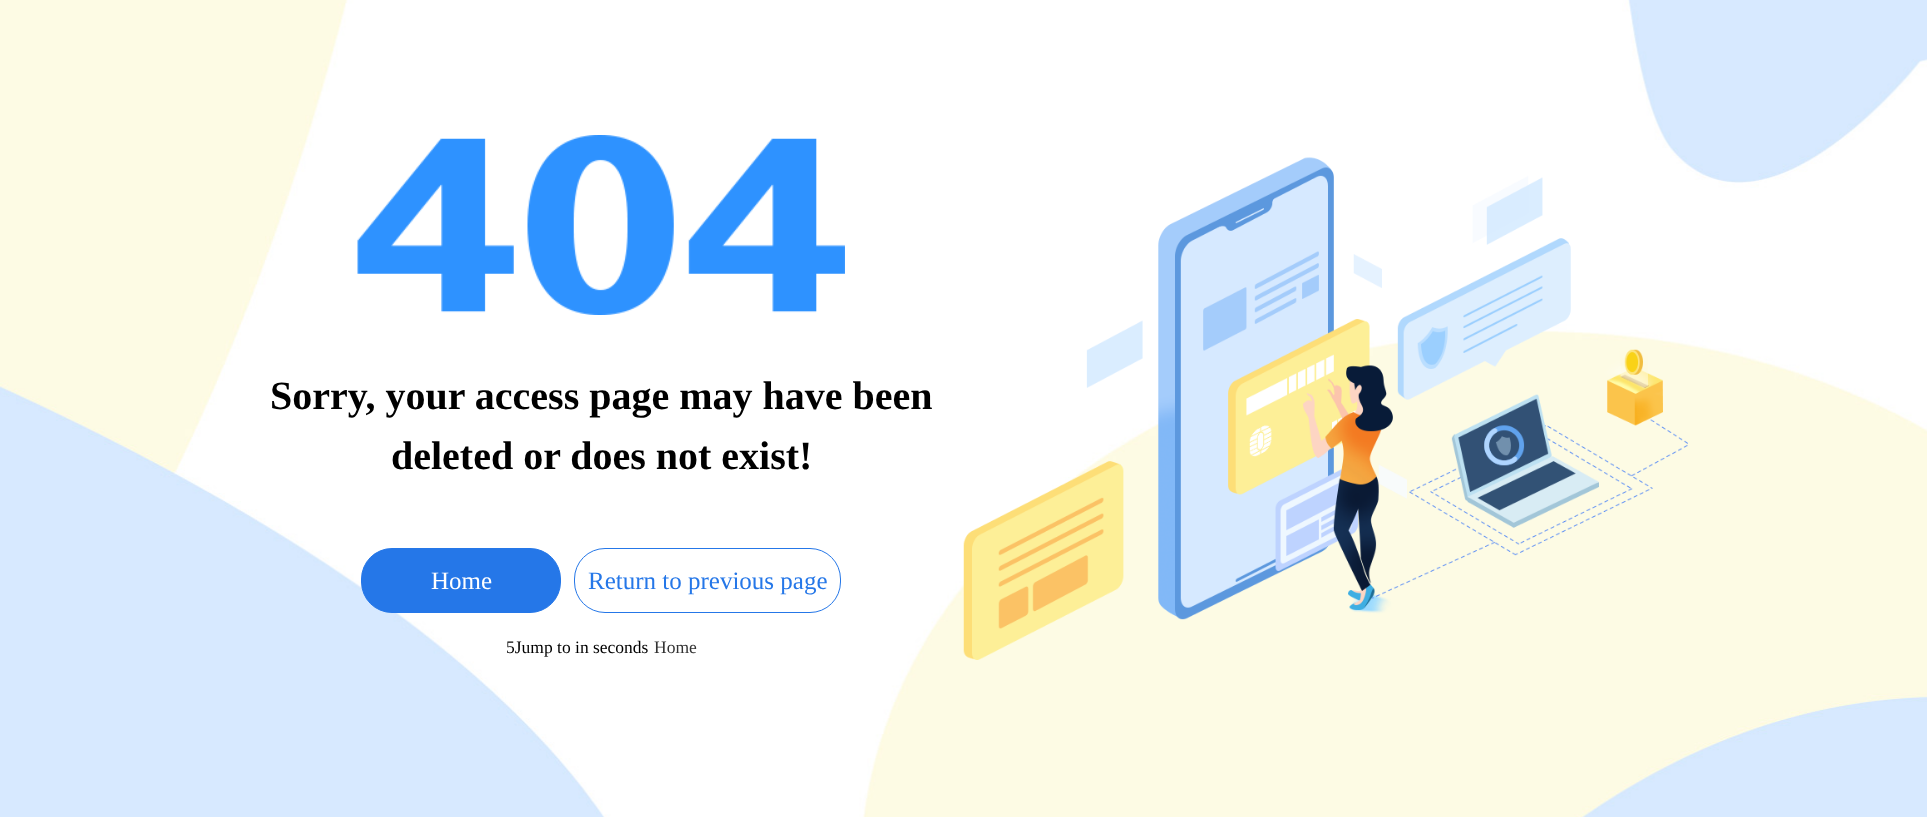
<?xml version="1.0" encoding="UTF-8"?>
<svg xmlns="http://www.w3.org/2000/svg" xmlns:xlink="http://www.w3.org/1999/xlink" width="1927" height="817">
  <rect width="100%" height="100%" fill="#ffffff" />
  <image x="0" y="0" width="1927" height="817" xlink:href="image1.png" />
  <image x="357" y="135" width="488" height="180" xlink:href="image2.png" />
  <rect x="361.5" y="548.5" width="199" height="64" rx="30.5" fill="#2577e8" stroke="#2577e8" />
  <rect x="574.5" y="548.5" width="266" height="64" rx="30.5" fill="none" stroke="#2577e8" />
  <image x="963" y="157" width="725" height="503" xlink:href="image3.png" />
  <text x="270" y="409" style="font-family: Liberation Serif; font-size: 40px; font-weight: bold; fill: #000000">Sorry, your access page may have been</text>
  <text x="391" y="469" style="font-family: Liberation Serif; font-size: 40px; font-weight: bold; fill: #000000">deleted or does not exist!</text>
  <text x="431" y="589" style="font-family: Liberation Serif; font-size: 25px; fill: #ffffff">Home</text>
  <text x="588" y="589" style="font-family: Liberation Serif; font-size: 25px; fill: #2577e8">Return to previous page</text>
  <text x="506" y="653" style="font-family: Liberation Serif; font-size: 17.5px; fill: #000000">5Jump to in seconds</text>
  <text x="654" y="653" style="font-family: Liberation Serif; font-size: 17.5px; fill: #333333">Home</text>
</svg>
